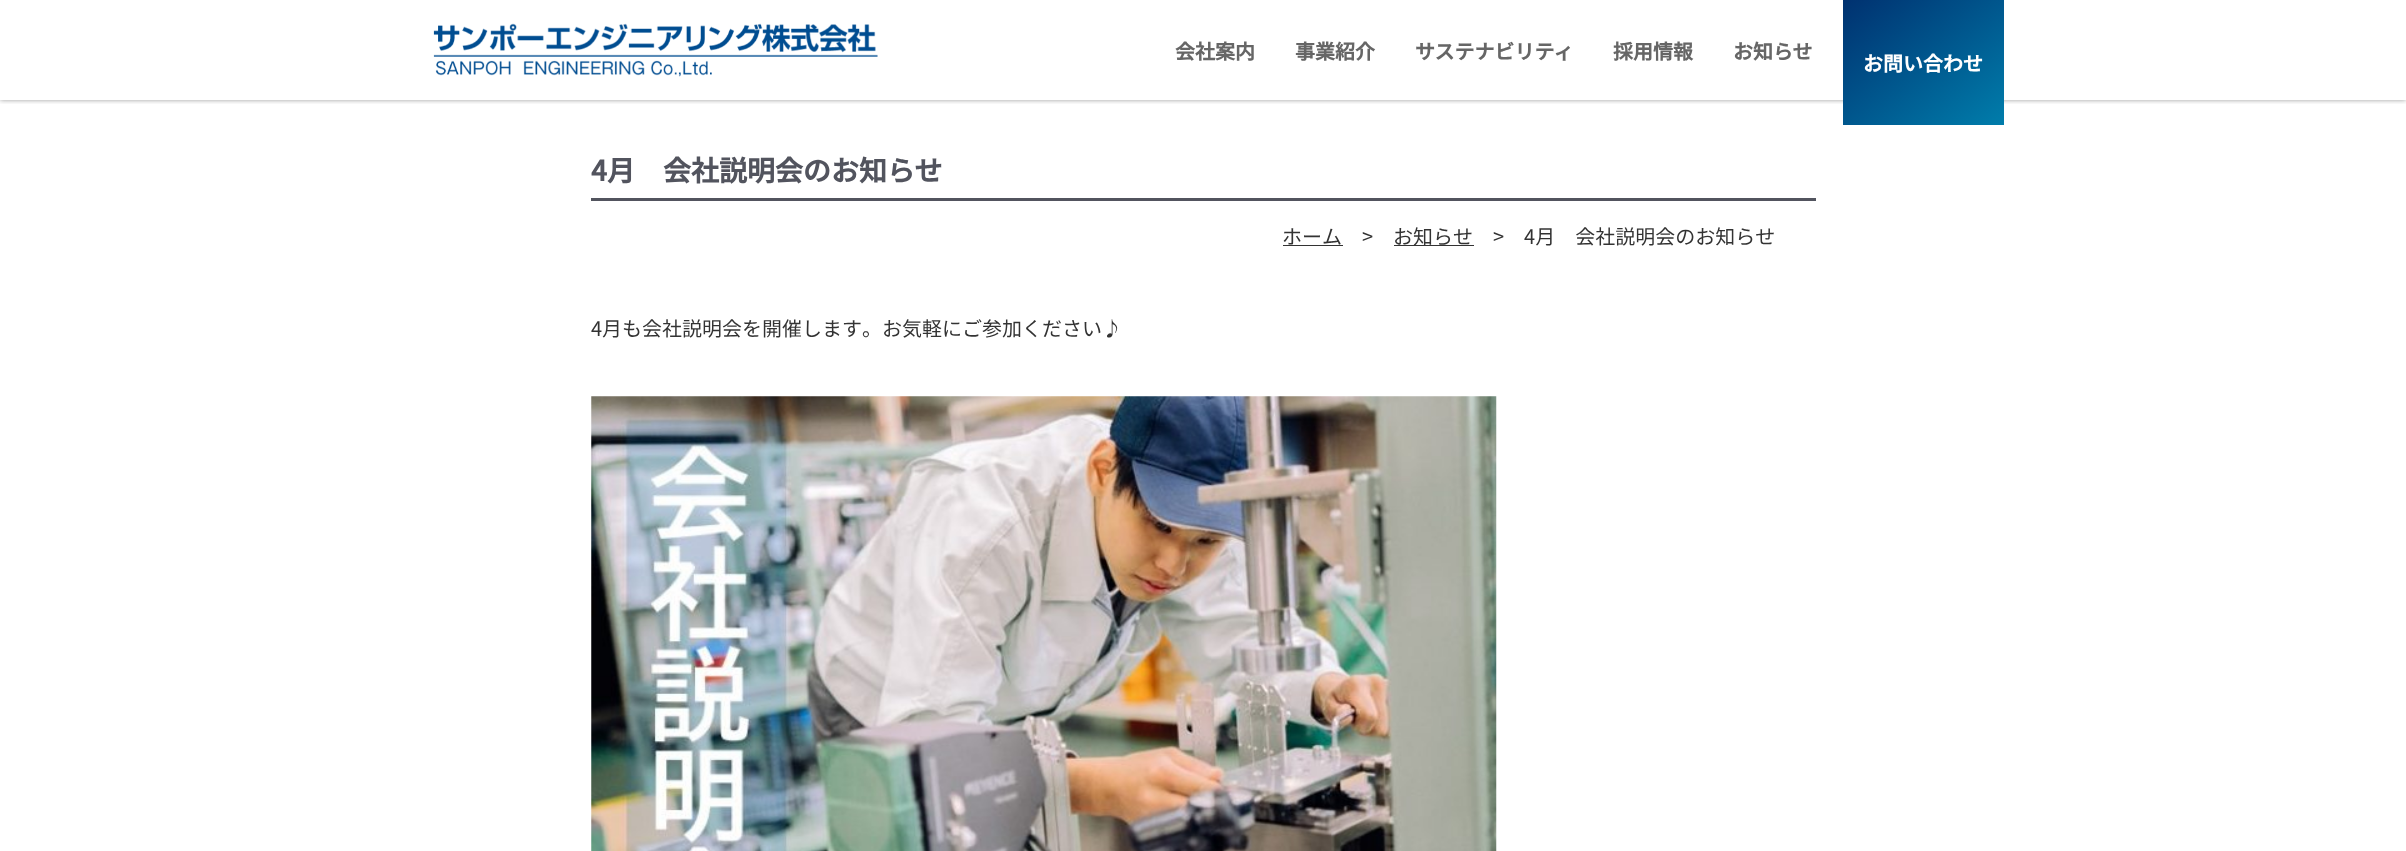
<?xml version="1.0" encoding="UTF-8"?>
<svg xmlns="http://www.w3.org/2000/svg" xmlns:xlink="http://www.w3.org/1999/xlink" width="2406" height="851">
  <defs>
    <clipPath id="clip1"><rect x="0" y="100" width="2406" height="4" /></clipPath>
    <linearGradient id="g1" gradientUnits="userSpaceOnUse" x1="1863" y1="-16" x2="1984" y2="141"><stop offset="0" stop-color="#003170" /><stop offset="1" stop-color="#007dab" /></linearGradient>
  </defs>
  <rect width="100%" height="100%" fill="#ffffff" />
  <g clip-path="url(#clip1)">
    <rect width="2406" height="100" fill="#000000" fill-opacity="0.4" filter="blur(2.5px)" />
  </g>
  <image x="433" y="23" width="445" height="54" xlink:href="image1.png" />
  <rect x="1843" width="161" height="125" fill="url(#g1)" />
  <rect x="591" y="198" width="1225" height="3" fill="#52545e" />
  <rect x="1283" y="245" width="60" height="1" fill="#333333" />
  <rect x="1394" y="245" width="80" height="1" fill="#333333" />
  <image x="591" y="396" width="906" height="455" xlink:href="image2.png" />
  <text x="1175" y="59" style="font-family: Noto Sans CJK JP; font-size: 20px; font-weight: bold; fill: #666666">会社案内</text>
  <text x="1295" y="59" style="font-family: Noto Sans CJK JP; font-size: 20px; font-weight: bold; fill: #666666">事業紹介</text>
  <text x="1415" y="59" style="font-family: Noto Sans CJK JP; font-size: 20px; font-weight: bold; fill: #666666">サステナビリティ</text>
  <text x="1613" y="59" style="font-family: Noto Sans CJK JP; font-size: 20px; font-weight: bold; fill: #666666">採用情報</text>
  <text x="1733" y="59" style="font-family: Noto Sans CJK JP; font-size: 20px; font-weight: bold; fill: #666666">お知らせ</text>
  <text x="1863" y="71" style="font-family: Noto Sans CJK JP; font-size: 20px; font-weight: bold; fill: #ffffff">お問い合わせ</text>
  <text x="591" y="181" style="font-family: Noto Sans CJK JP; font-size: 28px; font-weight: bold; fill: #52545e">4月　会社説明会のお知らせ</text>
  <text x="1282" y="244" style="font-family: Noto Sans JP; font-size: 20px; fill: #333333">ホーム</text>
  <text x="1362" y="244" style="font-family: Noto Sans JP; font-size: 20px; fill: #333333">&gt;</text>
  <text x="1393" y="244" style="font-family: Noto Sans JP; font-size: 20px; fill: #333333">お知らせ</text>
  <text x="1493" y="244" style="font-family: Noto Sans JP; font-size: 20px; fill: #333333">&gt;　4月　会社説明会のお知らせ</text>
  <text x="591" y="336" style="font-family: Noto Sans JP; font-size: 20px; fill: #333333">4月も会社説明会を開催します。お気軽にご参加ください♪</text>
</svg>
